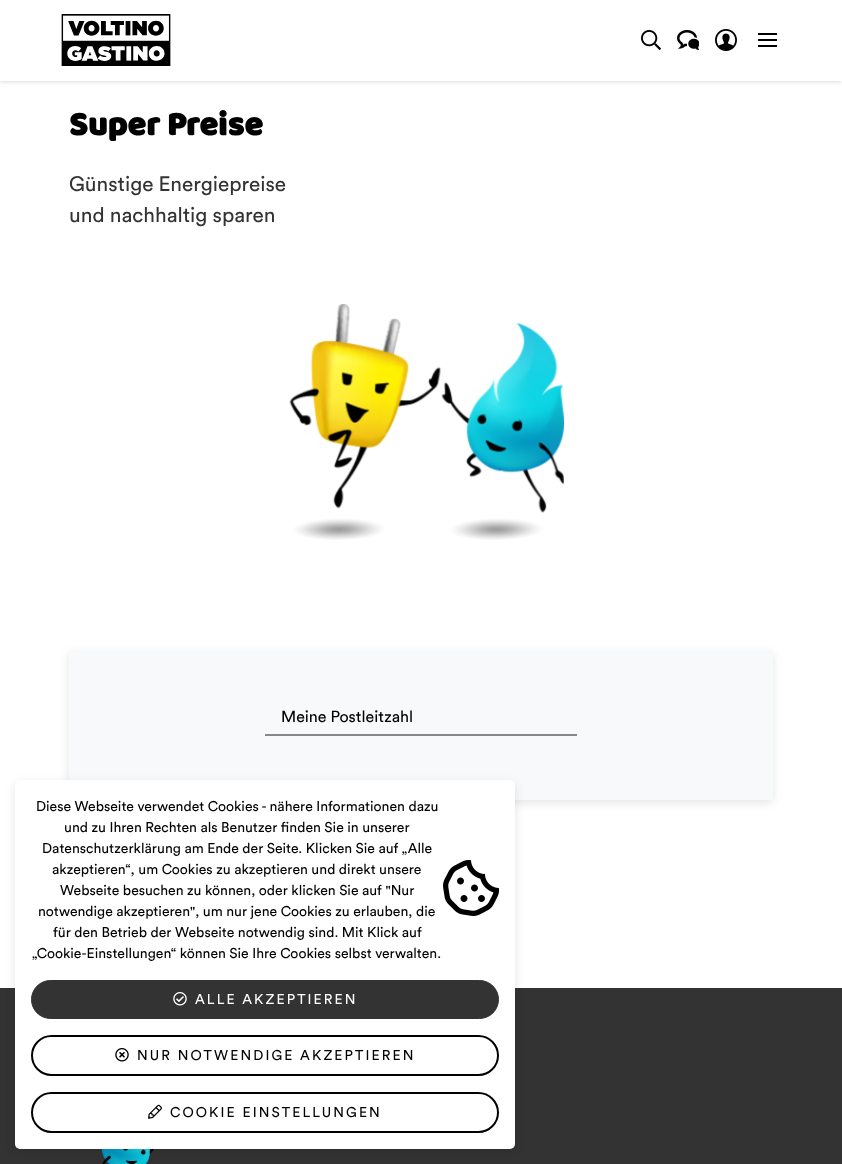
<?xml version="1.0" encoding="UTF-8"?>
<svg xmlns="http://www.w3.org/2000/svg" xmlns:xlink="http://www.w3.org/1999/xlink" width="842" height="1164">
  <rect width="100%" height="100%" fill="#333333" />
  <rect y="81" width="842" height="907" fill="#ffffff" />
  <rect width="842" height="81" fill="#cccccc" filter="blur(2.5px)" />
  <rect width="842" height="81" fill="#ffffff" />
  <image x="61" y="14" width="110" height="52" xlink:href="image1.png" />
  <image x="641" y="30" width="20" height="20" xlink:href="image2.png" />
  <image x="677" y="30" width="22" height="20" xlink:href="image3.png" />
  <image x="715" y="29" width="22" height="22" xlink:href="image4.png" />
  <rect x="758" y="33" width="19" height="2" fill="#000000" />
  <rect x="758" y="39" width="19" height="2" fill="#000000" />
  <rect x="758" y="45" width="19" height="2" fill="#000000" />
  <image x="289" y="304" width="275" height="236" xlink:href="image5.png" />
  <rect x="69" y="653" width="704" height="150" rx="4" fill="#000000" fill-opacity="0.1" filter="blur(5px)" />
  <rect x="69" y="650" width="704" height="150" fill="#f8f9fa" />
  <rect x="265" y="734" width="312" height="2" fill="#888888" />
  <image x="101" y="1149" width="54" height="15" xlink:href="image6.png" />
  <rect x="15" y="783" width="500" height="369" rx="5" fill="#000000" fill-opacity="0.1" filter="blur(5px)" />
  <rect x="15" y="780" width="500" height="369" rx="5" fill="#ffffff" />
  <image x="443" y="860" width="56" height="56" xlink:href="image7.png" />
  <rect x="31.5" y="980.5" width="467" height="38" rx="19" fill="#333333" stroke="#333333" />
  <image x="173" y="992" width="14" height="14" xlink:href="image8.png" />
  <rect x="32" y="1036" width="466" height="39" rx="19.5" fill="none" stroke="#000000" stroke-width="2" />
  <image x="115" y="1048" width="14" height="14" xlink:href="image9.png" />
  <rect x="32" y="1093" width="466" height="39" rx="19.5" fill="none" stroke="#000000" stroke-width="2" />
  <image x="148" y="1104" width="14" height="15" xlink:href="image10.png" />
  <text x="69" y="135" style="font-family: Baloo; font-size: 34px; font-weight: bold; fill: #000000">Super Preise</text>
  <text x="69" y="191" style="font-family: Circular; font-size: 20.75px; fill: #333333">Günstige Energiepreise</text>
  <text x="69" y="222" style="font-family: Circular; font-size: 20.75px; fill: #333333">und nachhaltig sparen</text>
  <text x="281" y="722" style="font-family: Circular; font-size: 16px; fill: #000000">Meine Postleitzahl</text>
  <text x="36" y="811" style="font-family: Circular; font-size: 14px; fill: #000000">Diese Webseite verwendet Cookies - nähere Informationen dazu</text>
  <text x="64" y="832" style="font-family: Circular; font-size: 14px; fill: #000000">und zu Ihren Rechten als Benutzer finden Sie in unserer</text>
  <text x="42" y="853" style="font-family: Circular; font-size: 14px; fill: #000000">Datenschutzerklärung am Ende der Seite. Klicken Sie auf „Alle</text>
  <text x="52" y="874" style="font-family: Circular; font-size: 14px; fill: #000000">akzeptieren“, um Cookies zu akzeptieren und direkt unsere</text>
  <text x="60" y="895" style="font-family: Circular; font-size: 14px; fill: #000000">Webseite besuchen zu können, oder klicken Sie auf "Nur</text>
  <text x="38" y="916" style="font-family: Circular; font-size: 14px; fill: #000000">notwendige akzeptieren", um nur jene Cookies zu erlauben, die</text>
  <text x="53" y="937" style="font-family: Circular; font-size: 14px; fill: #000000">für den Betrieb der Webseite notwendig sind. Mit Klick auf</text>
  <text x="32" y="958" style="font-family: Circular; font-size: 14px; fill: #000000">„Cookie-Einstellungen“ können Sie Ihre Cookies selbst verwalten.</text>
  <text x="195" y="1004" style="font-family: Circular; font-size: 14px; letter-spacing: 2.1px; fill: #ffffff">ALLE AKZEPTIEREN</text>
  <text x="137" y="1060" style="font-family: Circular; font-size: 14px; letter-spacing: 2.1px; fill: #000000">NUR NOTWENDIGE AKZEPTIEREN</text>
  <text x="170" y="1117" style="font-family: Circular; font-size: 14px; letter-spacing: 2.1px; fill: #000000">COOKIE EINSTELLUNGEN</text>
</svg>
